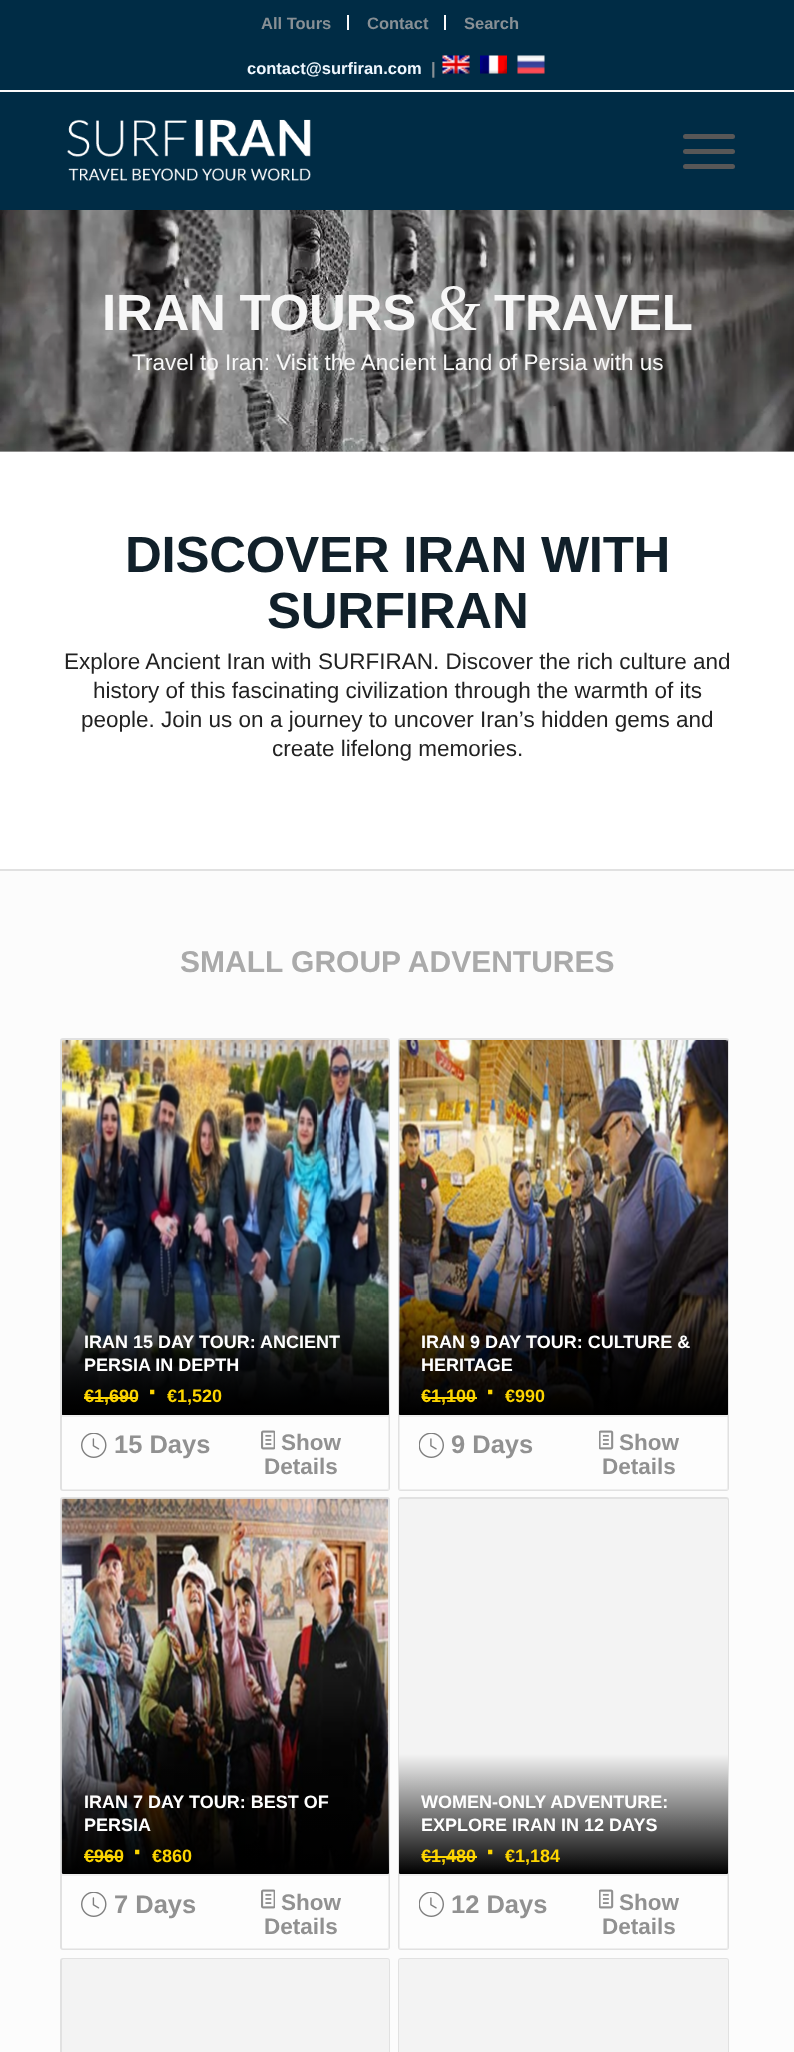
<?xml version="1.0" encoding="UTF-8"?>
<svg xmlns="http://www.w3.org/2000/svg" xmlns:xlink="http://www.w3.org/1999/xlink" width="794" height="2052">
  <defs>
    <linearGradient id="g1" gradientUnits="userSpaceOnUse" x1="225" y1="1415" x2="225" y2="1295"><stop offset="0" stop-color="#000000" /><stop offset="1" stop-color="#000000" stop-opacity="0" /></linearGradient>
    <linearGradient id="g2" gradientUnits="userSpaceOnUse" x1="563" y1="1415" x2="563" y2="1295"><stop offset="0" stop-color="#000000" /><stop offset="1" stop-color="#000000" stop-opacity="0" /></linearGradient>
    <linearGradient id="g3" gradientUnits="userSpaceOnUse" x1="225" y1="1874" x2="225" y2="1754"><stop offset="0" stop-color="#000000" /><stop offset="1" stop-color="#000000" stop-opacity="0" /></linearGradient>
    <linearGradient id="g4" gradientUnits="userSpaceOnUse" x1="563" y1="1874" x2="563" y2="1754"><stop offset="0" stop-color="#000000" /><stop offset="1" stop-color="#000000" stop-opacity="0" /></linearGradient>
  </defs>
  <rect width="100%" height="100%" fill="#ffffff" />
  <rect width="794" height="210" fill="#002c45" />
  <rect y="90" width="794" height="2" fill="#fafafa" />
  <rect x="347" y="15" width="2" height="15" fill="#fafafa" />
  <rect x="444" y="15" width="2" height="15" fill="#fafafa" />
  <image x="442" y="55" width="28" height="19" xlink:href="image1.png" />
  <image x="480" y="55" width="27" height="19" xlink:href="image2.png" />
  <image x="517" y="55" width="28" height="19" xlink:href="image3.png" />
  <image x="67" y="119" width="244" height="62" xlink:href="image4.png" />
  <rect x="683" y="149" width="52" height="5" rx="2.5" fill="#575757" />
  <rect x="683" y="134" width="52" height="5" rx="2.5" fill="#575757" />
  <rect x="683" y="164" width="52" height="5" rx="2.5" fill="#575757" />
  <rect y="451" width="794" height="1" fill="#cccccc" />
  <image x="0" y="210" width="794" height="242" xlink:href="image5.png" />
  <rect y="871" width="794" height="1181" fill="#fcfcfc" />
  <rect y="869" width="794" height="2" fill="#e1e1e1" />
  <rect x="61" y="1039" width="328" height="451" rx="2" fill="#ffffff" stroke="#e1e1e1" stroke-width="2" />
  <rect x="62" y="1040" width="327" height="375" rx="1.5" fill="#e7e7e7" />
  <image x="62" y="1040" width="327" height="375" xlink:href="image6.png" />
  <path d="M 62 1295 h 327 v 118.5 c 0 1 -0.5 1.5 -1.5 1.5 h -324 c -1 0 -1.5 -0.5 -1.5 -1.5 z" fill="url(#g1)" />
  <rect x="84" y="1397" width="54" height="2" fill="#fdd500" />
  <path d="M 62 1415 h 327 v 73.5 c 0 1 -0.5 1.5 -1.5 1.5 h -324 c -1 0 -1.5 -0.5 -1.5 -1.5 z" fill="#fcfcfc" fill-opacity="0.5" />
  <rect x="62" y="1415" width="327" height="2" fill="#e1e1e1" fill-opacity="0.5" />
  <image x="81" y="1433" width="26" height="25" xlink:href="image7.png" />
  <image x="261" y="1430" width="14" height="20" xlink:href="image8.png" />
  <rect x="399" y="1039" width="329" height="451" rx="2" fill="#ffffff" stroke="#e1e1e1" stroke-width="2" />
  <rect x="399" y="1040" width="329" height="375" rx="1.5" fill="#e7e7e7" />
  <image x="398" y="1040" width="330" height="375" xlink:href="image9.png" />
  <path d="M 399 1295 h 329 v 118.5 c 0 1 -0.5 1.5 -1.5 1.5 h -326 c -1 0 -1.5 -0.5 -1.5 -1.5 z" fill="url(#g2)" />
  <rect x="422" y="1397" width="55" height="2" fill="#fdd500" />
  <path d="M 399 1415 h 329 v 73.5 c 0 1 -0.5 1.5 -1.5 1.5 h -326 c -1 0 -1.5 -0.5 -1.5 -1.5 z" fill="#fcfcfc" fill-opacity="0.5" />
  <rect x="399" y="1415" width="329" height="2" fill="#e1e1e1" fill-opacity="0.5" />
  <image x="419" y="1433" width="25" height="25" xlink:href="image10.png" />
  <image x="599" y="1430" width="15" height="20" xlink:href="image11.png" />
  <rect x="61" y="1498" width="328" height="451" rx="2" fill="#ffffff" stroke="#e1e1e1" stroke-width="2" />
  <rect x="62" y="1499" width="327" height="375" rx="1.5" fill="#e7e7e7" />
  <image x="61" y="1498" width="328" height="376" xlink:href="image12.png" />
  <path d="M 62 1754 h 327 v 118.5 c 0 1 -0.5 1.5 -1.5 1.5 h -324 c -1 0 -1.5 -0.5 -1.5 -1.5 z" fill="url(#g3)" />
  <rect x="84" y="1856" width="39" height="2" fill="#fdd500" />
  <path d="M 62 1874 h 327 v 73.5 c 0 1 -0.5 1.5 -1.5 1.5 h -324 c -1 0 -1.5 -0.5 -1.5 -1.5 z" fill="#fcfcfc" fill-opacity="0.5" />
  <rect x="62" y="1874" width="327" height="2" fill="#e1e1e1" fill-opacity="0.5" />
  <image x="81" y="1892" width="26" height="25" xlink:href="image7.png" />
  <image x="261" y="1889" width="14" height="20" xlink:href="image8.png" />
  <rect x="399" y="1498" width="329" height="451" rx="2" fill="#ffffff" stroke="#e1e1e1" stroke-width="2" />
  <rect x="399" y="1499" width="329" height="375" rx="1.5" fill="#f3f3f3" />
  <path d="M 399 1754 h 329 v 118.5 c 0 1 -0.5 1.5 -1.5 1.5 h -326 c -1 0 -1.5 -0.5 -1.5 -1.5 z" fill="url(#g4)" />
  <rect x="422" y="1856" width="55" height="2" fill="#fdd500" />
  <path d="M 399 1874 h 329 v 73.5 c 0 1 -0.5 1.5 -1.5 1.5 h -326 c -1 0 -1.5 -0.5 -1.5 -1.5 z" fill="#fcfcfc" fill-opacity="0.5" />
  <rect x="399" y="1874" width="329" height="2" fill="#e1e1e1" fill-opacity="0.5" />
  <image x="419" y="1892" width="25" height="25" xlink:href="image10.png" />
  <image x="599" y="1889" width="15" height="20" xlink:href="image11.png" />
  <rect x="61" y="1959" width="328" height="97" rx="2" fill="none" stroke="#e1e1e1" stroke-width="2" />
  <rect x="62" y="1959" width="327" height="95" rx="1.5" fill="#f3f3f3" />
  <rect x="399" y="1959" width="329" height="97" rx="2" fill="none" stroke="#e1e1e1" stroke-width="2" />
  <rect x="399" y="1959" width="329" height="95" rx="1.5" fill="#f3f3f3" />
  <text x="261" y="29" style="font-family: Liberation Sans; font-size: 16.5px; font-weight: bold; fill: #889095">All Tours</text>
  <text x="367" y="29" style="font-family: Liberation Sans; font-size: 16.5px; font-weight: bold; fill: #889095">Contact</text>
  <text x="464" y="29" style="font-family: Liberation Sans; font-size: 16.5px; font-weight: bold; fill: #889095">Search</text>
  <text x="247" y="74" style="font-family: Liberation Sans; font-size: 16.5px; font-weight: bold; fill: #f0f8ff">contact@surfiran.com</text>
  <text x="431" y="74" style="font-family: Liberation Sans; font-size: 16.5px; font-weight: bold; fill: #889095">|</text>
  <text x="102" y="330" style="font-family: Liberation Sans; font-size: 51px; font-weight: bold; letter-spacing: -0.25px; fill: #f7f7f7">IRAN TOURS</text>
  <text x="429" y="330" style="font-family: Liberation Serif; font-size: 66px; font-style: italic; letter-spacing: -0.25px; fill: #f7f7f7">&amp;</text>
  <text x="494" y="330" style="font-family: Liberation Sans; font-size: 51px; font-weight: bold; letter-spacing: -0.25px; fill: #f7f7f7">TRAVEL</text>
  <text x="132" y="370" style="font-family: Liberation Sans; font-size: 22.5px; fill: #f7f7f7">Travel to Iran: Visit the Ancient Land of Persia with us</text>
  <text x="125" y="572" style="font-family: Liberation Sans; font-size: 51px; font-weight: bold; letter-spacing: -0.25px; fill: #11202a">DISCOVER IRAN WITH</text>
  <text x="267" y="628" style="font-family: Liberation Sans; font-size: 51px; font-weight: bold; letter-spacing: -0.25px; fill: #11202a">SURFIRAN</text>
  <text x="64" y="669" style="font-family: Liberation Sans; font-size: 22.5px; fill: #222222">Explore Ancient Iran with SURFIRAN. Discover the rich culture and</text>
  <text x="93" y="698" style="font-family: Liberation Sans; font-size: 22.5px; fill: #222222">history of this fascinating civilization through the warmth of its</text>
  <text x="81" y="727" style="font-family: Liberation Sans; font-size: 22.5px; fill: #222222">people. Join us on a journey to uncover Iran’s hidden gems and</text>
  <text x="272" y="756" style="font-family: Liberation Sans; font-size: 22.5px; fill: #222222">create lifelong memories.</text>
  <text x="180" y="972" style="font-family: Liberation Sans; font-size: 30px; font-weight: bold; fill: #aaaaaa">SMALL GROUP ADVENTURES</text>
  <text x="84" y="1348" style="font-family: Liberation Sans; font-size: 18px; font-weight: bold; fill: #ffffff">IRAN 15 DAY TOUR: ANCIENT</text>
  <text x="84" y="1371" style="font-family: Liberation Sans; font-size: 18px; font-weight: bold; fill: #ffffff">PERSIA IN DEPTH</text>
  <text x="84" y="1402" style="font-family: Liberation Sans; font-size: 18px; font-weight: bold; fill: #fdd500">€1,690</text>
  <text x="148" y="1402" style="font-family: Liberation Sans; font-size: 30px; font-weight: bold; fill: #fdd500">∙</text>
  <text x="167" y="1402" style="font-family: Liberation Sans; font-size: 18px; font-weight: bold; fill: #fdd500">€1,520</text>
  <text x="114" y="1453" style="font-family: Liberation Sans; font-size: 25.5px; font-weight: bold; fill: #919191">15 Days</text>
  <text x="281" y="1450" style="font-family: Liberation Sans; font-size: 22.5px; font-weight: bold; fill: #919191">Show</text>
  <text x="264" y="1474" style="font-family: Liberation Sans; font-size: 22.5px; font-weight: bold; fill: #919191">Details</text>
  <text x="421" y="1348" style="font-family: Liberation Sans; font-size: 18px; font-weight: bold; fill: #ffffff">IRAN 9 DAY TOUR: CULTURE &amp;</text>
  <text x="421" y="1371" style="font-family: Liberation Sans; font-size: 18px; font-weight: bold; fill: #ffffff">HERITAGE</text>
  <text x="421" y="1402" style="font-family: Liberation Sans; font-size: 18px; font-weight: bold; fill: #fdd500">€1,100</text>
  <text x="486" y="1402" style="font-family: Liberation Sans; font-size: 30px; font-weight: bold; fill: #fdd500">∙</text>
  <text x="505" y="1402" style="font-family: Liberation Sans; font-size: 18px; font-weight: bold; fill: #fdd500">€990</text>
  <text x="451" y="1453" style="font-family: Liberation Sans; font-size: 25.5px; font-weight: bold; fill: #919191">9 Days</text>
  <text x="619" y="1450" style="font-family: Liberation Sans; font-size: 22.5px; font-weight: bold; fill: #919191">Show</text>
  <text x="602" y="1474" style="font-family: Liberation Sans; font-size: 22.5px; font-weight: bold; fill: #919191">Details</text>
  <text x="84" y="1808" style="font-family: Liberation Sans; font-size: 18px; font-weight: bold; fill: #ffffff">IRAN 7 DAY TOUR: BEST OF</text>
  <text x="84" y="1831" style="font-family: Liberation Sans; font-size: 18px; font-weight: bold; fill: #ffffff">PERSIA</text>
  <text x="84" y="1862" style="font-family: Liberation Sans; font-size: 18px; font-weight: bold; fill: #fdd500">€960</text>
  <text x="133" y="1862" style="font-family: Liberation Sans; font-size: 30px; font-weight: bold; fill: #fdd500">∙</text>
  <text x="152" y="1862" style="font-family: Liberation Sans; font-size: 18px; font-weight: bold; fill: #fdd500">€860</text>
  <text x="114" y="1913" style="font-family: Liberation Sans; font-size: 25.5px; font-weight: bold; fill: #919191">7 Days</text>
  <text x="281" y="1910" style="font-family: Liberation Sans; font-size: 22.5px; font-weight: bold; fill: #919191">Show</text>
  <text x="264" y="1934" style="font-family: Liberation Sans; font-size: 22.5px; font-weight: bold; fill: #919191">Details</text>
  <text x="421" y="1808" style="font-family: Liberation Sans; font-size: 18px; font-weight: bold; fill: #ffffff">WOMEN-ONLY ADVENTURE:</text>
  <text x="421" y="1831" style="font-family: Liberation Sans; font-size: 18px; font-weight: bold; fill: #ffffff">EXPLORE IRAN IN 12 DAYS</text>
  <text x="421" y="1862" style="font-family: Liberation Sans; font-size: 18px; font-weight: bold; fill: #fdd500">€1,480</text>
  <text x="486" y="1862" style="font-family: Liberation Sans; font-size: 30px; font-weight: bold; fill: #fdd500">∙</text>
  <text x="505" y="1862" style="font-family: Liberation Sans; font-size: 18px; font-weight: bold; fill: #fdd500">€1,184</text>
  <text x="451" y="1913" style="font-family: Liberation Sans; font-size: 25.5px; font-weight: bold; fill: #919191">12 Days</text>
  <text x="619" y="1910" style="font-family: Liberation Sans; font-size: 22.5px; font-weight: bold; fill: #919191">Show</text>
  <text x="602" y="1934" style="font-family: Liberation Sans; font-size: 22.5px; font-weight: bold; fill: #919191">Details</text>
</svg>
